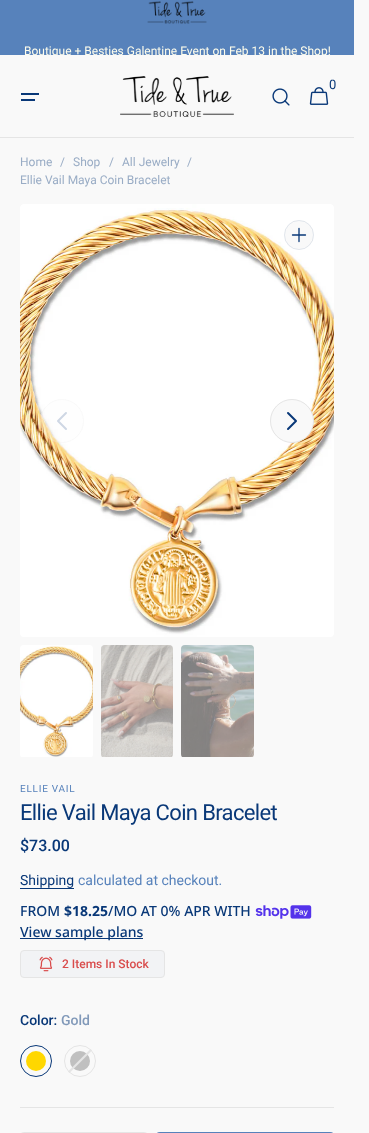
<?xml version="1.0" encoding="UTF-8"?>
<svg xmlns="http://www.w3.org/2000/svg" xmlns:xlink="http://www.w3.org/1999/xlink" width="369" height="1133">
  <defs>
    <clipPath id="clip1"><rect width="354" height="55" /></clipPath>
  </defs>
  <rect width="100%" height="100%" fill="#f9f9f9" />
  <rect width="354" height="55" fill="#5782bb" />
  <image x="147" y="1" width="60" height="23" xlink:href="image1.png" />
  <image x="120" y="76" width="114" height="41" xlink:href="image2.png" />
  <image x="309" y="87" width="20" height="18" xlink:href="image3.png" />
  <image x="272" y="88" width="18" height="18" xlink:href="image4.png" />
  <rect x="21" y="93" width="18" height="2" fill="#093878" />
  <rect x="21" y="99" width="14" height="2" fill="#093878" />
  <rect y="137" width="354" height="1" fill="#e5e5e5" />
  <image x="20" y="204" width="314" height="433" xlink:href="image5.png" />
  <circle cx="299" cy="235" r="15" fill="#f9f9f9" />
  <circle cx="299" cy="235" r="14.5" fill="none" stroke="#093878" stroke-opacity="0.1" />
  <path d="M 299 228.5 v 13 m 6.5 -6.5 h -13" fill="none" stroke="#093878" stroke-width="1.3" stroke-linecap="round" />
  <circle cx="62" cy="421" r="22" fill="#f9f9f9" fill-opacity="0.2" />
  <circle cx="62" cy="421" r="21.5" fill="none" stroke="#e5e5e5" stroke-opacity="0.2" />
  <path d="M 66 429 l -8 -8 l 8 -8" fill="none" stroke="#ced7e4" stroke-width="2" stroke-linecap="round" stroke-linejoin="round" />
  <circle cx="292" cy="421" r="21.5" fill="#f9f9f9" stroke="#e5e5e5" />
  <path d="M 288 413 l 8 8 l -8 8" fill="none" stroke="#093878" stroke-width="2" stroke-linecap="round" stroke-linejoin="round" />
  <image x="20" y="645" width="73" height="112" xlink:href="image6.png" />
  <image x="101" y="645" width="72" height="112" xlink:href="image7.png" />
  <image x="181" y="645" width="73" height="112" xlink:href="image8.png" />
  <rect x="20" y="888" width="54" height="1" fill="#093878" />
  <image x="255" y="905" width="57" height="14" xlink:href="image9.png" />
  <rect x="20" y="938" width="123" height="1" fill="#093878" />
  <rect x="20.5" y="950.5" width="144" height="27" rx="3.5" fill="#f2f3f5" stroke="#e5e5e5" />
  <image x="39" y="956" width="14" height="16" xlink:href="image10.png" />
  <circle cx="36" cy="1061" r="15.5" fill="none" stroke="#093878" />
  <circle cx="36" cy="1061" r="10" fill="#ffd700" />
  <circle cx="80" cy="1061" r="10" fill="#c0c0c0" />
  <circle cx="80" cy="1061" r="15.5" fill="none" stroke="#e5e5e5" />
  <path d="M 68 1071.5 l 22.5 -22.5 l 1.5 1.5 l -22.5 22.5 z" fill="#e5e5e5" />
  <rect x="20" y="1107" width="314" height="1" fill="#e5e5e5" />
  <rect x="20.5" y="1132.5" width="127" height="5" rx="3.5" fill="none" stroke="#e5e5e5" />
  <rect x="157" y="1133" width="176" height="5" rx="3" fill="none" stroke="#5782bb" stroke-width="2" />
  <g clip-path="url(#clip1)">
    <text x="24" y="55" style="font-family: Roboto; font-size: 12px; fill: #fffeec">Boutique + Besties Galentine Event on Feb 13 in the Shop!</text>
  </g>
  <text x="329" y="89" style="font-family: Roboto; font-size: 13px; fill: #093878">0</text>
  <text x="20" y="166" style="font-family: Roboto; font-size: 12px; fill: #99acc5">Home</text>
  <text x="60" y="166" style="font-family: Roboto; font-size: 12px; fill: #99acc5">/</text>
  <text x="73" y="166" style="font-family: Roboto; font-size: 12px; fill: #99acc5">Shop</text>
  <text x="109" y="166" style="font-family: Roboto; font-size: 12px; fill: #99acc5">/</text>
  <text x="122" y="166" style="font-family: Roboto; font-size: 12px; fill: #99acc5">All Jewelry</text>
  <text x="187" y="166" style="font-family: Roboto; font-size: 12px; fill: #99acc5">/</text>
  <text x="20" y="184" style="font-family: Roboto; font-size: 12px; fill: #99acc5">Ellie Vail Maya Coin Bracelet</text>
  <text x="20" y="792" style="font-family: Roboto; font-size: 10px; letter-spacing: 0.75px; fill: #5782bb">ELLIE VAIL</text>
  <text x="20" y="820" style="font-family: Roboto; font-size: 22px; letter-spacing: -0.65px; fill: #093878">Ellie Vail Maya Coin Bracelet</text>
  <text x="20" y="851" style="font-family: Roboto; font-size: 16px; font-weight: 500; fill: #093878">$73.00</text>
  <text x="20" y="885" style="font-family: Roboto; font-size: 14px; fill: #093878">Shipping</text>
  <text x="78" y="885" style="font-family: Roboto; font-size: 14px; fill: #5782bb">calculated at checkout.</text>
  <text x="20" y="916" style="font-family: Noto Sans; font-size: 14px; font-weight: 500; fill: #093878">FROM</text>
  <text x="64" y="916" style="font-family: Noto Sans; font-size: 14px; font-weight: bold; fill: #093878">$18.25</text>
  <text x="108" y="916" style="font-family: Noto Sans; font-size: 14px; font-weight: 500; fill: #093878">/MO AT 0% APR WITH</text>
  <text x="20" y="937" style="font-family: Noto Sans; font-size: 14px; font-weight: 500; fill: #093878">View sample plans</text>
  <text x="62" y="968" style="font-family: Roboto; font-size: 12px; font-weight: 500; fill: #d94c4c">2 Items In Stock</text>
  <text x="20" y="1025" style="font-family: Roboto; font-size: 14px; font-weight: 500; fill: #093878">Color:</text>
  <text x="61" y="1025" style="font-family: Roboto; font-size: 14px; font-weight: 500; fill: #8199b9">Gold</text>
</svg>
